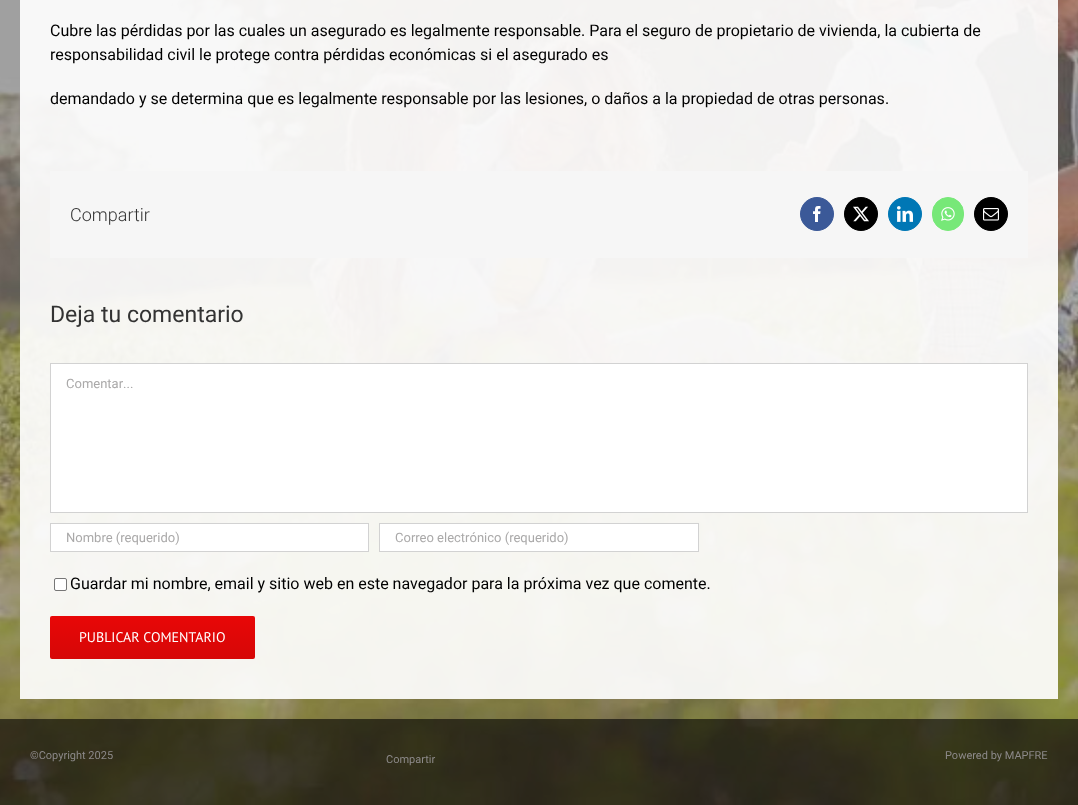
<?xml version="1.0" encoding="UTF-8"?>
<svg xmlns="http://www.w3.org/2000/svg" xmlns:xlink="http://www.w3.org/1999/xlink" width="1078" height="805">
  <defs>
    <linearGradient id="g1" gradientUnits="userSpaceOnUse" x1="153" y1="616" x2="153" y2="659"><stop offset="0" stop-color="#e80707" /><stop offset="1" stop-color="#d60707" /></linearGradient>
  </defs>
  <rect width="100%" height="100%" fill="#ffffff" />
  <image x="0" y="0" width="1078" height="805" xlink:href="image1.png" />
  <rect x="20" width="1038" height="699" fill="#ffffff" fill-opacity="0.92" />
  <rect x="50" y="171" width="978" height="87" fill="#f6f6f6" />
  <circle cx="817" cy="214" r="16.5" fill="#3b5998" stroke="#3b5998" />
  <image x="813" y="206" width="8" height="16" xlink:href="image2.png" />
  <circle cx="861" cy="214" r="16.5" fill="#000000" stroke="#000000" />
  <image x="853" y="206" width="16" height="16" xlink:href="image3.png" />
  <circle cx="905" cy="214" r="16.5" fill="#0077b5" stroke="#0077b5" />
  <image x="897" y="206" width="16" height="16" xlink:href="image4.png" />
  <rect x="932.5" y="197.5" width="31" height="33" rx="15.5" fill="#77e878" stroke="#77e878" />
  <image x="941" y="207" width="14" height="14" xlink:href="image5.png" />
  <circle cx="991" cy="214" r="16.5" fill="#000000" stroke="#000000" />
  <image x="983" y="208" width="16" height="13" xlink:href="image6.png" />
  <rect x="50.5" y="363.5" width="977" height="149" fill="#ffffff" stroke="#d2d2d2" />
  <rect x="50.5" y="523.5" width="318" height="28" fill="#ffffff" stroke="#d2d2d2" />
  <rect x="379.5" y="523.5" width="319" height="28" fill="#ffffff" stroke="#d2d2d2" />
  <rect x="54.5" y="578.5" width="12" height="12" rx="1.5" fill="#ffffff" stroke="#767676" />
  <rect x="50" y="616" width="205" height="43" rx="2" fill="url(#g1)" />
  <rect y="719" width="1078" height="86" fill="#000000" fill-opacity="0.6" />
  <text x="50" y="36" style="font-family: Roboto; font-size: 16px; fill: #000000">Cubre las pérdidas por las cuales un asegurado es legalmente responsable. Para el seguro de propietario de vivienda, la cubierta de</text>
  <text x="50" y="60" style="font-family: Roboto; font-size: 16px; fill: #000000">responsabilidad civil le protege contra pérdidas económicas si el asegurado es</text>
  <text x="50" y="104" style="font-family: Roboto; font-size: 16px; fill: #000000">demandado y se determina que es legalmente responsable por las lesiones, o daños a la propiedad de otras personas.</text>
  <text x="70" y="221" style="font-family: Roboto; font-size: 18px; font-weight: 300; fill: #333333">Compartir</text>
  <text x="50" y="322" style="font-family: Roboto; font-size: 23px; fill: #333333">Deja tu comentario</text>
  <text x="66" y="388" style="font-family: Roboto; font-size: 13px; fill: #aaa9a9">Comentar...</text>
  <text x="66" y="542" style="font-family: Roboto; font-size: 13px; fill: #aaa9a9">Nombre (requerido)</text>
  <text x="395" y="542" style="font-family: Roboto; font-size: 13px; fill: #aaa9a9">Correo electrónico (requerido)</text>
  <text x="70" y="589" style="font-family: Roboto; font-size: 16px; fill: #000000">Guardar mi nombre, email y sitio web en este navegador para la próxima vez que comente.</text>
  <text x="79" y="642" style="font-family: PT Sans; font-size: 14px; fill: #ffffff">PUBLICAR COMENTARIO</text>
  <text x="30" y="759" style="font-family: Roboto; font-size: 11px; fill: #8c8989">©Copyright 2025</text>
  <text x="386" y="763" style="font-family: Roboto; font-size: 11px; fill: #8c8989">Compartir</text>
  <text x="945" y="759" style="font-family: Roboto; font-size: 11px; fill: #8c8989">Powered by MAPFRE</text>
</svg>
